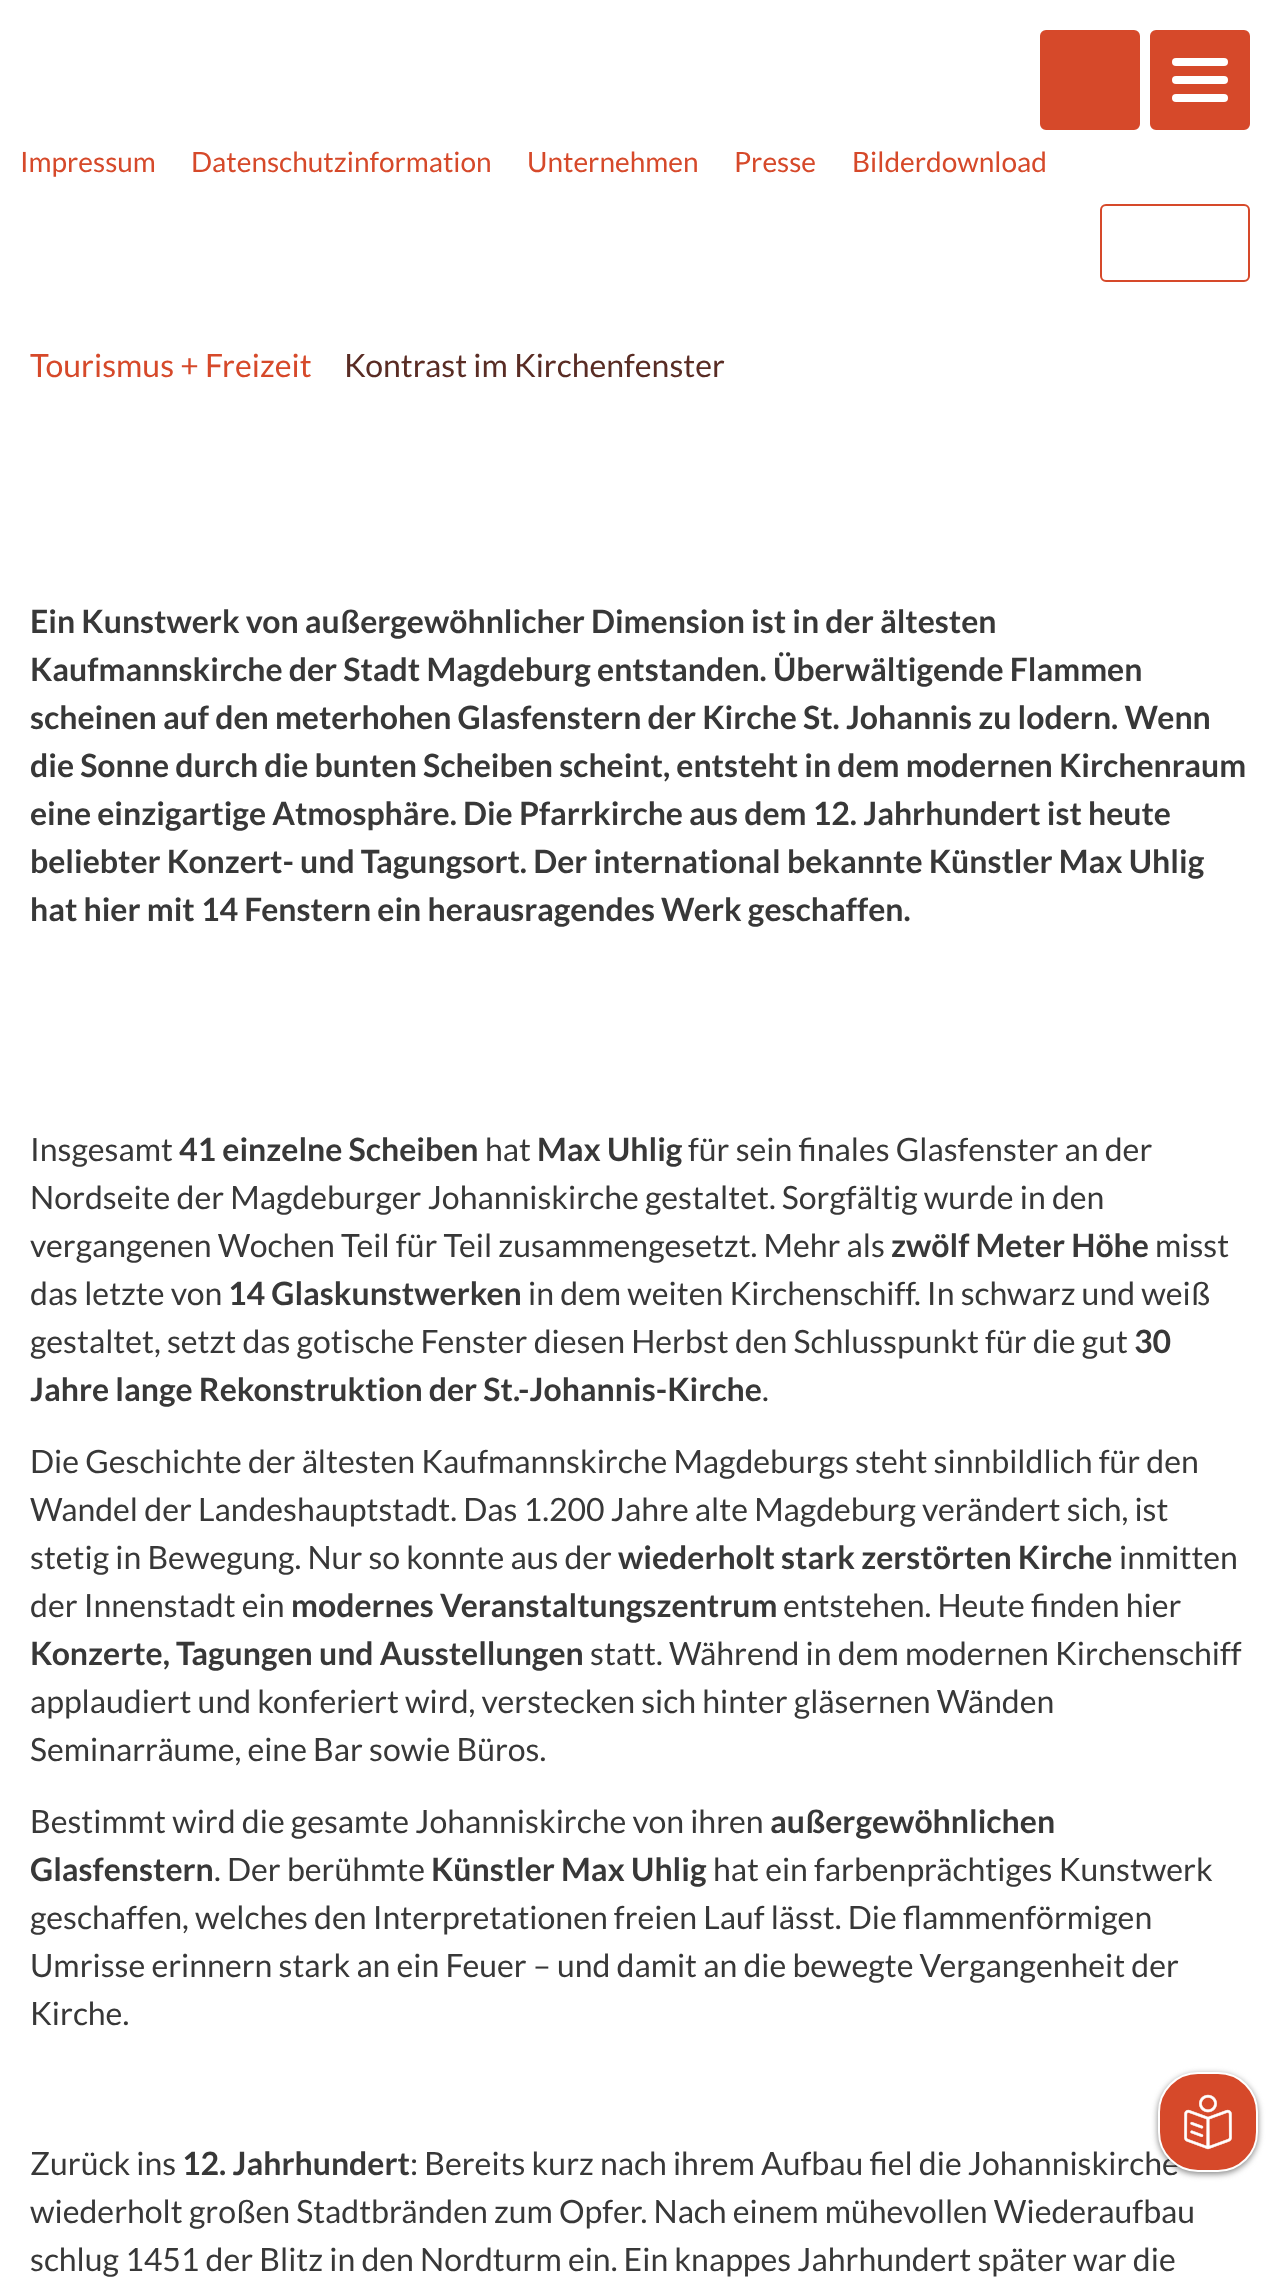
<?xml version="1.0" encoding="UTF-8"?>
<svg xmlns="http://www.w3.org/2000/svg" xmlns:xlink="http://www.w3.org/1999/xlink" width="1280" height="2291">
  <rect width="100%" height="100%" fill="#ffffff" />
  <rect x="1041" y="31" width="98" height="98" rx="5" fill="#d6492a" stroke="#d6492a" stroke-width="2" />
  <rect x="1151" y="31" width="98" height="98" rx="5" fill="#d6492a" stroke="#d6492a" stroke-width="2" />
  <rect x="1172" y="58" width="56" height="8" rx="4" fill="#ffffff" />
  <rect x="1172" y="76" width="56" height="8" rx="4" fill="#ffffff" />
  <rect x="1172" y="94" width="56" height="8" rx="4" fill="#ffffff" />
  <rect x="1101" y="205" width="148" height="76" rx="5" fill="none" stroke="#d6492a" stroke-width="2" />
  <rect x="1158" y="2074" width="100" height="100" rx="40" fill="#848484" filter="blur(3px)" />
  <text x="20" y="172" style="font-family: Lato; font-size: 28px; fill: #d6492a">Impressum</text>
  <text x="191" y="172" style="font-family: Lato; font-size: 28px; fill: #d6492a">Datenschutzinformation</text>
  <text x="527" y="172" style="font-family: Lato; font-size: 28px; fill: #d6492a">Unternehmen</text>
  <text x="734" y="172" style="font-family: Lato; font-size: 28px; fill: #d6492a">Presse</text>
  <text x="852" y="172" style="font-family: Lato; font-size: 28px; fill: #d6492a">Bilderdownload</text>
  <text x="30" y="377" style="font-family: Lato; font-size: 32px; fill: #d6492a">Tourismus + Freizeit</text>
  <text x="344" y="377" style="font-family: Lato; font-size: 32px; fill: #592c24">Kontrast im Kirchenfenster</text>
  <text x="30" y="633" style="font-family: Lato; font-size: 32px; font-weight: bold; fill: #383838">Ein Kunstwerk von außergewöhnlicher Dimension ist in der ältesten</text>
  <text x="30" y="681" style="font-family: Lato; font-size: 32px; font-weight: bold; fill: #383838">Kaufmannskirche der Stadt Magdeburg entstanden. Überwältigende Flammen</text>
  <text x="30" y="729" style="font-family: Lato; font-size: 32px; font-weight: bold; fill: #383838">scheinen auf den meterhohen Glasfenstern der Kirche St. Johannis zu lodern. Wenn</text>
  <text x="30" y="777" style="font-family: Lato; font-size: 32px; font-weight: bold; fill: #383838">die Sonne durch die bunten Scheiben scheint, entsteht in dem modernen Kirchenraum</text>
  <text x="30" y="825" style="font-family: Lato; font-size: 32px; font-weight: bold; fill: #383838">eine einzigartige Atmosphäre. Die Pfarrkirche aus dem 12. Jahrhundert ist heute</text>
  <text x="30" y="873" style="font-family: Lato; font-size: 32px; font-weight: bold; fill: #383838">beliebter Konzert- und Tagungsort. Der international bekannte Künstler Max Uhlig</text>
  <text x="30" y="921" style="font-family: Lato; font-size: 32px; font-weight: bold; fill: #383838">hat hier mit 14 Fenstern ein herausragendes Werk geschaffen.</text>
  <text x="30" y="1161" style="font-family: Lato; font-size: 32px; fill: #383838">Insgesamt</text>
  <text x="179" y="1161" style="font-family: Lato; font-size: 32px; font-weight: bold; fill: #383838">41 einzelne Scheiben</text>
  <text x="485" y="1161" style="font-family: Lato; font-size: 32px; fill: #383838">hat</text>
  <text x="537" y="1161" style="font-family: Lato; font-size: 32px; font-weight: bold; fill: #383838">Max Uhlig</text>
  <text x="688" y="1161" style="font-family: Lato; font-size: 32px; fill: #383838">für sein finales Glasfenster an der</text>
  <text x="30" y="1209" style="font-family: Lato; font-size: 32px; fill: #383838">Nordseite der Magdeburger Johanniskirche gestaltet. Sorgfältig wurde in den</text>
  <text x="30" y="1257" style="font-family: Lato; font-size: 32px; fill: #383838">vergangenen Wochen Teil für Teil zusammengesetzt. Mehr als</text>
  <text x="891" y="1257" style="font-family: Lato; font-size: 32px; font-weight: bold; fill: #383838">zwölf Meter Höhe</text>
  <text x="1155" y="1257" style="font-family: Lato; font-size: 32px; fill: #383838">misst</text>
  <text x="30" y="1305" style="font-family: Lato; font-size: 32px; fill: #383838">das letzte von</text>
  <text x="228" y="1305" style="font-family: Lato; font-size: 32px; font-weight: bold; fill: #383838">14 Glaskunstwerken</text>
  <text x="528" y="1305" style="font-family: Lato; font-size: 32px; fill: #383838">in dem weiten Kirchenschiff. In schwarz und weiß</text>
  <text x="30" y="1353" style="font-family: Lato; font-size: 32px; fill: #383838">gestaltet, setzt das gotische Fenster diesen Herbst den Schlusspunkt für die gut</text>
  <text x="1134" y="1353" style="font-family: Lato; font-size: 32px; font-weight: bold; fill: #383838">30</text>
  <text x="30" y="1401" style="font-family: Lato; font-size: 32px; font-weight: bold; fill: #383838">Jahre lange Rekonstruktion der St.-Johannis-Kirche</text>
  <text x="762" y="1401" style="font-family: Lato; font-size: 32px; fill: #383838">.</text>
  <text x="30" y="1473" style="font-family: Lato; font-size: 32px; fill: #383838">Die Geschichte der ältesten Kaufmannskirche Magdeburgs steht sinnbildlich für den</text>
  <text x="30" y="1521" style="font-family: Lato; font-size: 32px; fill: #383838">Wandel der Landeshauptstadt. Das 1.200 Jahre alte Magdeburg verändert sich, ist</text>
  <text x="30" y="1569" style="font-family: Lato; font-size: 32px; fill: #383838">stetig in Bewegung. Nur so konnte aus der</text>
  <text x="618" y="1569" style="font-family: Lato; font-size: 32px; font-weight: bold; fill: #383838">wiederholt stark zerstörten Kirche</text>
  <text x="1119" y="1569" style="font-family: Lato; font-size: 32px; fill: #383838">inmitten</text>
  <text x="30" y="1617" style="font-family: Lato; font-size: 32px; fill: #383838">der Innenstadt ein</text>
  <text x="291" y="1617" style="font-family: Lato; font-size: 32px; font-weight: bold; fill: #383838">modernes Veranstaltungszentrum</text>
  <text x="783" y="1617" style="font-family: Lato; font-size: 32px; fill: #383838">entstehen. Heute finden hier</text>
  <text x="30" y="1665" style="font-family: Lato; font-size: 32px; font-weight: bold; fill: #383838">Konzerte, Tagungen und Ausstellungen</text>
  <text x="590" y="1665" style="font-family: Lato; font-size: 32px; fill: #383838">statt. Während in dem modernen Kirchenschiff</text>
  <text x="30" y="1713" style="font-family: Lato; font-size: 32px; fill: #383838">applaudiert und konferiert wird, verstecken sich hinter gläsernen Wänden</text>
  <text x="30" y="1761" style="font-family: Lato; font-size: 32px; fill: #383838">Seminarräume, eine Bar sowie Büros.</text>
  <text x="30" y="1833" style="font-family: Lato; font-size: 32px; fill: #383838">Bestimmt wird die gesamte Johanniskirche von ihren</text>
  <text x="770" y="1833" style="font-family: Lato; font-size: 32px; font-weight: bold; fill: #383838">außergewöhnlichen</text>
  <text x="30" y="1881" style="font-family: Lato; font-size: 32px; font-weight: bold; fill: #383838">Glasfenstern</text>
  <text x="214" y="1881" style="font-family: Lato; font-size: 32px; fill: #383838">. Der berühmte</text>
  <text x="431" y="1881" style="font-family: Lato; font-size: 32px; font-weight: bold; fill: #383838">Künstler Max Uhlig</text>
  <text x="713" y="1881" style="font-family: Lato; font-size: 32px; fill: #383838">hat ein farbenprächtiges Kunstwerk</text>
  <text x="30" y="1929" style="font-family: Lato; font-size: 32px; fill: #383838">geschaffen, welches den Interpretationen freien Lauf lässt. Die flammenförmigen</text>
  <text x="30" y="1977" style="font-family: Lato; font-size: 32px; fill: #383838">Umrisse erinnern stark an ein Feuer – und damit an die bewegte Vergangenheit der</text>
  <text x="30" y="2025" style="font-family: Lato; font-size: 32px; fill: #383838">Kirche.</text>
  <text x="30" y="2175" style="font-family: Lato; font-size: 32px; fill: #383838">Zurück ins</text>
  <text x="182" y="2175" style="font-family: Lato; font-size: 32px; font-weight: bold; fill: #383838">12. Jahrhundert</text>
  <text x="410" y="2175" style="font-family: Lato; font-size: 32px; fill: #383838">: Bereits kurz nach ihrem Aufbau fiel die Johanniskirche</text>
  <rect x="1159" y="2073" width="98" height="98" rx="39" fill="#d6492a" stroke="#ffffff" stroke-width="2" />
  <image x="1184" y="2094" width="48" height="56" xlink:href="image1.png" />
  <text x="30" y="2223" style="font-family: Lato; font-size: 32px; fill: #383838">wiederholt großen Stadtbränden zum Opfer. Nach einem mühevollen Wiederaufbau</text>
  <text x="30" y="2271" style="font-family: Lato; font-size: 32px; fill: #383838">schlug 1451 der Blitz in den Nordturm ein. Ein knappes Jahrhundert später war die</text>
</svg>
